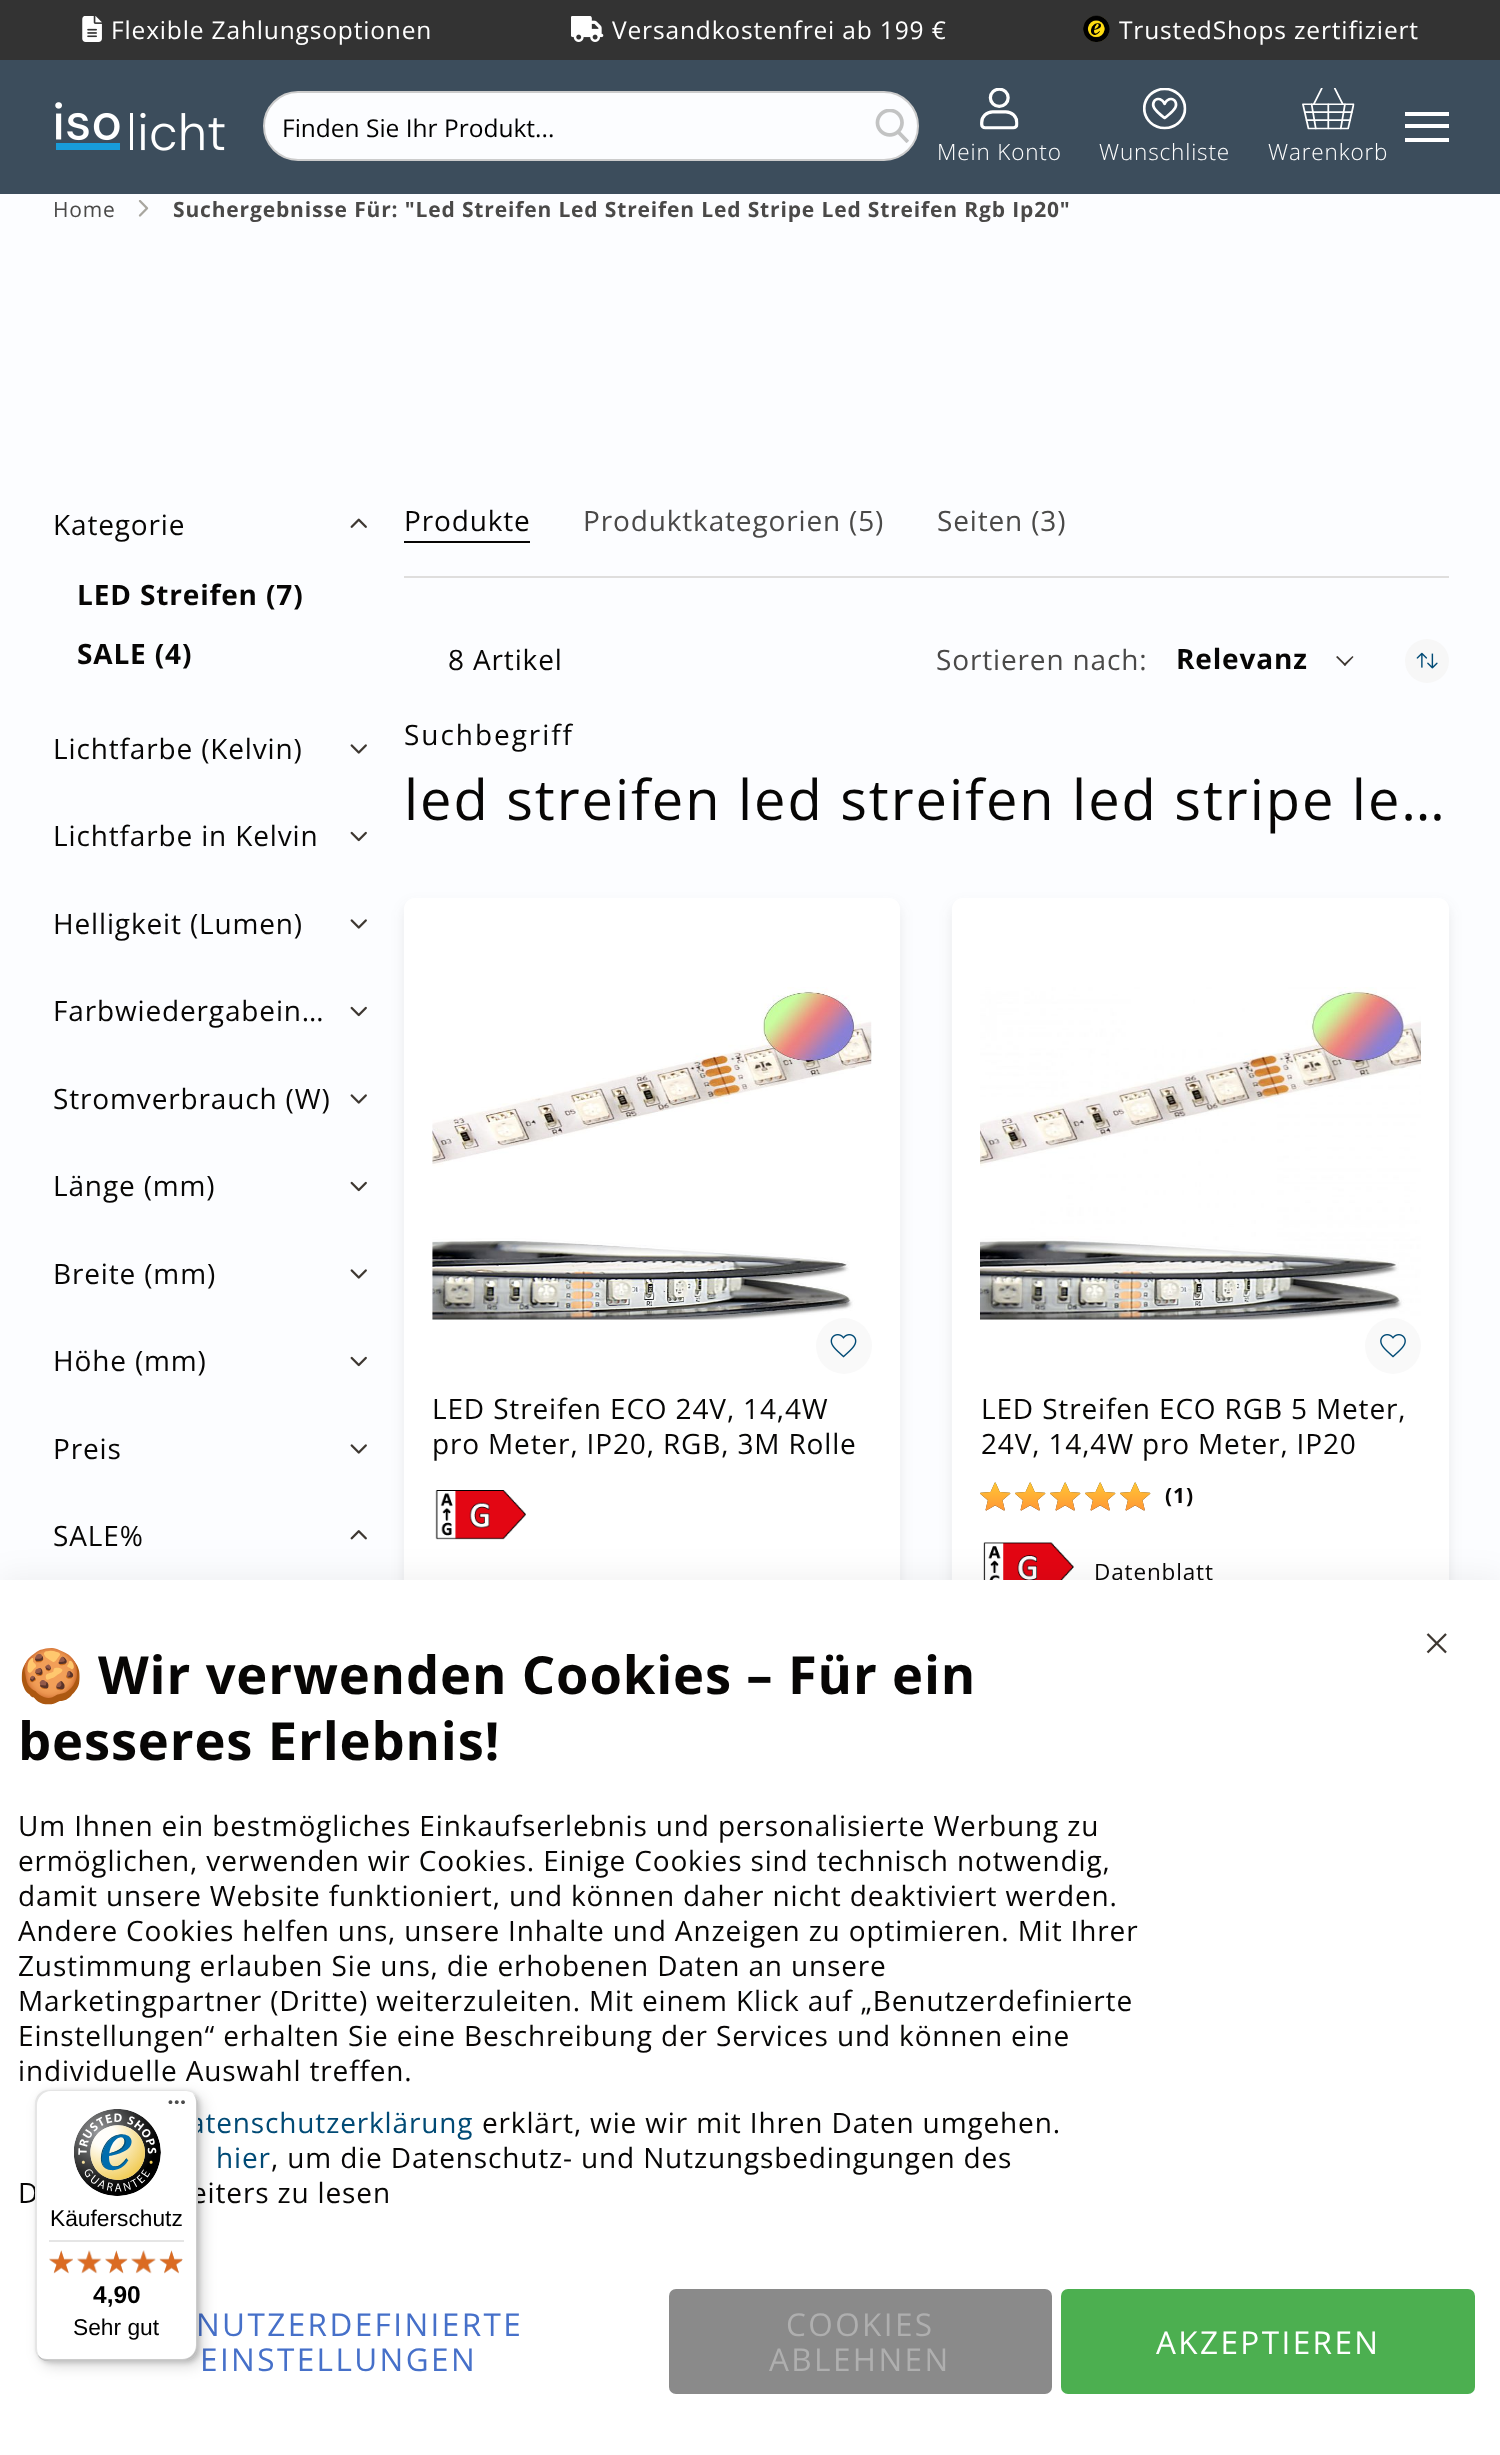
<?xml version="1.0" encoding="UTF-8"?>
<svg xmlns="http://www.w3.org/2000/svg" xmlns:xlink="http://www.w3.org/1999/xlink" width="1500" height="2455">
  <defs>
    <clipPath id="clip1"><rect x="18" y="1633" width="1120" height="595" /></clipPath>
  </defs>
  <rect width="100%" height="100%" fill="#fcfdff" />
  <rect width="1500" height="60" fill="#333333" />
  <image x="82" y="16" width="20" height="26" xlink:href="image1.png" />
  <image x="571" y="16" width="33" height="26" xlink:href="image2.png" />
  <image x="1083" y="15" width="27" height="27" xlink:href="image3.png" />
  <rect y="60" width="1500" height="134" fill="#3c4d5c" />
  <image x="55" y="102" width="170" height="49" xlink:href="image4.png" />
  <rect x="264" y="92" width="654" height="68" rx="34" fill="#fcfdff" stroke="#cccccc" stroke-width="2" />
  <image x="875" y="109" width="34" height="34" xlink:href="image5.png" />
  <rect x="1405" y="112" width="44" height="4" fill="#ffffff" />
  <rect x="1405" y="138" width="44" height="4" fill="#ffffff" />
  <rect x="1405" y="124" width="44" height="4" fill="#ffffff" />
  <image x="980" y="88" width="39" height="42" xlink:href="image6.png" />
  <image x="1143" y="88" width="44" height="42" xlink:href="image7.png" />
  <image x="1302" y="88" width="53" height="42" xlink:href="image8.png" />
  <image x="138" y="200" width="11" height="17" xlink:href="image9.png" />
  <image x="350" y="518" width="17" height="10" xlink:href="image10.png" />
  <image x="350" y="744" width="17" height="10" xlink:href="image11.png" />
  <image x="350" y="831" width="17" height="11" xlink:href="image12.png" />
  <image x="350" y="919" width="17" height="10" xlink:href="image11.png" />
  <image x="350" y="1006" width="17" height="11" xlink:href="image12.png" />
  <image x="350" y="1094" width="17" height="10" xlink:href="image11.png" />
  <image x="350" y="1181" width="17" height="11" xlink:href="image12.png" />
  <image x="350" y="1269" width="17" height="10" xlink:href="image11.png" />
  <image x="350" y="1356" width="17" height="11" xlink:href="image12.png" />
  <image x="350" y="1444" width="17" height="10" xlink:href="image11.png" />
  <image x="350" y="1530" width="17" height="10" xlink:href="image13.png" />
  <rect x="404" y="541" width="126" height="2" fill="#070605" />
  <rect x="406" y="543" width="123" height="2" fill="#ffffff" />
  <rect x="404" y="576" width="1045" height="2" fill="#dfdedd" />
  <path d="M 1352.5 656 l 1 1 l -8.5 9 l -1.5 -1.5 z" fill="#3d3731" />
  <path d="M 1337.5 656 l 8.5 8.5 l -1 1.5 l -9 -9 z" fill="#3d3731" />
  <circle cx="1427" cy="661" r="22" fill="#f7f7f7" />
  <image x="1416" y="652" width="22" height="17" xlink:href="image14.png" />
  <rect x="404" y="905" width="496" height="863" rx="11" fill="#393838" fill-opacity="0.1" filter="blur(7px)" />
  <rect x="404" y="898" width="496" height="863" rx="11" fill="#ffffff" />
  <image x="432" y="987" width="440" height="333" xlink:href="image15.png" />
  <circle cx="844" cy="1346" r="28" fill="#f9f9f9" />
  <image x="830" y="1334" width="27" height="24" xlink:href="image16.png" />
  <image x="435" y="1490" width="91" height="50" xlink:href="image17.png" />
  <rect x="952" y="905" width="497" height="863" rx="11" fill="#393838" fill-opacity="0.1" filter="blur(7px)" />
  <rect x="952" y="898" width="497" height="863" rx="11" fill="#ffffff" />
  <image x="980" y="987" width="441" height="333" xlink:href="image18.png" />
  <circle cx="1393" cy="1346" r="28" fill="#f9f9f9" />
  <image x="1380" y="1334" width="26" height="24" xlink:href="image19.png" />
  <image x="980" y="1482" width="171" height="29" xlink:href="image20.png" />
  <image x="980" y="1482" width="171" height="29" xlink:href="image21.png" />
  <image x="983" y="1542" width="91" height="38" xlink:href="image22.png" />
  <rect y="1577" width="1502" height="875" fill="#000000" fill-opacity="0.06" filter="blur(16px)" />
  <text x="111" y="39" style="font-family: Open Sans; font-size: 24.5px; letter-spacing: 0.85px; fill: #ffffff">Flexible Zahlungsoptionen</text>
  <text x="612" y="39" style="font-family: Open Sans; font-size: 24.5px; letter-spacing: 0.85px; fill: #ffffff">Versandkostenfrei ab 199 €</text>
  <text x="1119" y="39" style="font-family: Open Sans; font-size: 24.5px; letter-spacing: 0.85px; fill: #ffffff">TrustedShops zertifiziert</text>
  <text x="282" y="137" style="font-family: Open Sans; font-size: 24.5px; fill: #000000">Finden Sie Ihr Produkt...</text>
  <text x="937" y="160" style="font-family: Open Sans; font-size: 22.5px; font-weight: 300; letter-spacing: 0.85px; fill: #ffffff">Mein Konto</text>
  <text x="1099" y="160" style="font-family: Open Sans; font-size: 22.5px; font-weight: 300; letter-spacing: 0.85px; fill: #ffffff">Wunschliste</text>
  <text x="1268" y="160" style="font-family: Open Sans; font-size: 22.5px; font-weight: 300; letter-spacing: 0.85px; fill: #ffffff">Warenkorb</text>
  <text x="53" y="217" style="font-family: Open Sans; font-size: 21px; letter-spacing: 0.85px; fill: #4a4948">Home</text>
  <text x="173" y="217" style="font-family: Open Sans; font-size: 21px; font-weight: bold; letter-spacing: 0.85px; fill: #4a4948">Suchergebnisse Für: "Led Streifen Led Streifen Led Stripe Led Streifen Rgb Ip20"</text>
  <text x="53" y="535" style="font-family: Open Sans; font-size: 28px; letter-spacing: 0.85px; fill: #070605">Kategorie</text>
  <text x="77" y="605" style="font-family: Open Sans; font-size: 28px; font-weight: bold; letter-spacing: 0.85px; fill: #070605">LED Streifen (7)</text>
  <text x="77" y="664" style="font-family: Open Sans; font-size: 28px; font-weight: bold; letter-spacing: 0.85px; fill: #070605">SALE (4)</text>
  <text x="53" y="759" style="font-family: Open Sans; font-size: 28px; letter-spacing: 0.85px; fill: #070605">Lichtfarbe (Kelvin)</text>
  <text x="53" y="846" style="font-family: Open Sans; font-size: 28px; letter-spacing: 0.85px; fill: #070605">Lichtfarbe in Kelvin</text>
  <text x="53" y="934" style="font-family: Open Sans; font-size: 28px; letter-spacing: 0.85px; fill: #070605">Helligkeit (Lumen)</text>
  <text x="53" y="1021" style="font-family: Open Sans; font-size: 28px; letter-spacing: 0.85px; fill: #070605">Farbwiedergabein…</text>
  <text x="53" y="1109" style="font-family: Open Sans; font-size: 28px; letter-spacing: 0.85px; fill: #070605">Stromverbrauch (W)</text>
  <text x="53" y="1196" style="font-family: Open Sans; font-size: 28px; letter-spacing: 0.85px; fill: #070605">Länge (mm)</text>
  <text x="53" y="1284" style="font-family: Open Sans; font-size: 28px; letter-spacing: 0.85px; fill: #070605">Breite (mm)</text>
  <text x="53" y="1371" style="font-family: Open Sans; font-size: 28px; letter-spacing: 0.85px; fill: #070605">Höhe (mm)</text>
  <text x="53" y="1459" style="font-family: Open Sans; font-size: 28px; letter-spacing: 0.85px; fill: #070605">Preis</text>
  <text x="53" y="1546" style="font-family: Open Sans; font-size: 28px; letter-spacing: 0.85px; fill: #070605">SALE%</text>
  <text x="404" y="531" style="font-family: Open Sans; font-size: 28px; letter-spacing: 0.85px; fill: #070605">Produkte</text>
  <text x="583" y="531" style="font-family: Open Sans; font-size: 28px; letter-spacing: 0.85px; fill: #4a4948">Produktkategorien (5)</text>
  <text x="937" y="531" style="font-family: Open Sans; font-size: 28px; letter-spacing: 0.85px; fill: #4a4948">Seiten (3)</text>
  <text x="448" y="670" style="font-family: Open Sans; font-size: 28px; letter-spacing: 0.85px; fill: #070605">8 Artikel</text>
  <text x="936" y="670" style="font-family: Open Sans; font-size: 28px; letter-spacing: 0.85px; fill: #4a4948">Sortieren nach:</text>
  <text x="1176" y="669" style="font-family: Open Sans; font-size: 28px; font-weight: bold; letter-spacing: 0.85px; fill: #070605">Relevanz</text>
  <text x="404" y="745" style="font-family: Open Sans; font-size: 28px; letter-spacing: 1.95px; fill: #070605">Suchbegriff</text>
  <text x="404" y="820" style="font-family: Open Sans; font-size: 56px; letter-spacing: 1.95px; fill: #070605">led streifen led streifen led stripe le…</text>
  <text x="432" y="1419" style="font-family: Open Sans; font-size: 28px; letter-spacing: 0.85px; fill: #070605">LED Streifen ECO 24V, 14,4W</text>
  <text x="432" y="1454" style="font-family: Open Sans; font-size: 28px; letter-spacing: 0.85px; fill: #070605">pro Meter, IP20, RGB, 3M Rolle</text>
  <text x="981" y="1419" style="font-family: Open Sans; font-size: 28px; letter-spacing: 0.85px; fill: #070605">LED Streifen ECO RGB 5 Meter,</text>
  <text x="981" y="1454" style="font-family: Open Sans; font-size: 28px; letter-spacing: 0.85px; fill: #070605">24V, 14,4W pro Meter, IP20</text>
  <text x="1165" y="1503" style="font-family: Open Sans; font-size: 21px; font-weight: bold; letter-spacing: 1px; fill: #070605">(1)</text>
  <text x="1094" y="1580" style="font-family: Open Sans; font-size: 22.5px; letter-spacing: 0.85px; fill: #070605">Datenblatt</text>
  <rect y="1580" width="1500" height="875" fill="#ffffff" />
  <image x="1426" y="1633" width="21" height="21" xlink:href="image23.png" />
  <g clip-path="url(#clip1)">
    <text x="18" y="1694" style="font-family: Noto Color Emoji; font-size: 52.5px; letter-spacing: 0.85px; fill: #070605">🍪</text>
  </g>
  <text x="98" y="1694" style="font-family: Open Sans; font-size: 52.5px; font-weight: bold; letter-spacing: 0.85px; fill: #070605">Wir verwenden Cookies – Für ein</text>
  <text x="18" y="1760" style="font-family: Open Sans; font-size: 52.5px; font-weight: bold; letter-spacing: 0.85px; fill: #070605">besseres Erlebnis!</text>
  <text x="18" y="1836" style="font-family: Open Sans; font-size: 28px; letter-spacing: 0.85px; fill: #070605">Um Ihnen ein bestmögliches Einkaufserlebnis und personalisierte Werbung zu</text>
  <text x="18" y="1871" style="font-family: Open Sans; font-size: 28px; letter-spacing: 0.85px; fill: #070605">ermöglichen, verwenden wir Cookies. Einige Cookies sind technisch notwendig,</text>
  <text x="18" y="1906" style="font-family: Open Sans; font-size: 28px; letter-spacing: 0.85px; fill: #070605">damit unsere Website funktioniert, und können daher nicht deaktiviert werden.</text>
  <text x="18" y="1941" style="font-family: Open Sans; font-size: 28px; letter-spacing: 0.85px; fill: #070605">Andere Cookies helfen uns, unsere Inhalte und Anzeigen zu optimieren. Mit Ihrer</text>
  <text x="18" y="1976" style="font-family: Open Sans; font-size: 28px; letter-spacing: 0.85px; fill: #070605">Zustimmung erlauben Sie uns, die erhobenen Daten an unsere</text>
  <text x="18" y="2011" style="font-family: Open Sans; font-size: 28px; letter-spacing: 0.85px; fill: #070605">Marketingpartner (Dritte) weiterzuleiten. Mit einem Klick auf „Benutzerdefinierte</text>
  <text x="18" y="2046" style="font-family: Open Sans; font-size: 28px; letter-spacing: 0.85px; fill: #070605">Einstellungen“ erhalten Sie eine Beschreibung der Services und können eine</text>
  <text x="18" y="2081" style="font-family: Open Sans; font-size: 28px; letter-spacing: 0.85px; fill: #070605">individuelle Auswahl treffen.</text>
  <text x="189" y="2133" style="font-family: Open Sans; font-size: 28px; letter-spacing: 0.85px; fill: #004a75">atenschutzerklärung</text>
  <text x="482" y="2133" style="font-family: Open Sans; font-size: 28px; letter-spacing: 0.85px; fill: #070605">erklärt, wie wir mit Ihren Daten umgehen.</text>
  <text x="216" y="2168" style="font-family: Open Sans; font-size: 28px; letter-spacing: 0.85px; fill: #004a75">hier</text>
  <text x="271" y="2168" style="font-family: Open Sans; font-size: 28px; letter-spacing: 0.85px; fill: #070605">, um die Datenschutz- und Nutzungsbedingungen des</text>
  <text x="18" y="2203" style="font-family: Open Sans; font-size: 28px; letter-spacing: 0.85px; fill: #070605">D</text>
  <text x="191" y="2203" style="font-family: Open Sans; font-size: 28px; letter-spacing: 0.85px; fill: #070605">eiters zu lesen</text>
  <text x="196" y="2336" style="font-family: Open Sans; font-size: 31.5px; letter-spacing: 2.4px; fill: #4670c9">NUTZERDEFINIERTE</text>
  <text x="200" y="2371" style="font-family: Open Sans; font-size: 31.5px; letter-spacing: 2.4px; fill: #4670c9">EINSTELLUNGEN</text>
  <rect x="669" y="2289" width="383" height="105" rx="7" fill="#8a8a8a" />
  <text x="786" y="2336" style="font-family: Open Sans; font-size: 31.5px; letter-spacing: 2.4px; fill: #afafaf">COOKIES</text>
  <text x="769" y="2371" style="font-family: Open Sans; font-size: 31.5px; letter-spacing: 2.4px; fill: #afafaf">ABLEHNEN</text>
  <rect x="1061" y="2289" width="414" height="105" rx="7" fill="#4caf50" />
  <text x="1156" y="2354" style="font-family: Open Sans; font-size: 31.5px; letter-spacing: 2.4px; fill: #ffffff">AKZEPTIEREN</text>
  <rect x="40" y="2095" width="163" height="271" rx="14" fill="#000000" fill-opacity="0.15" filter="blur(7px)" />
  <rect x="37" y="2091" width="163" height="272" rx="14" fill="#000000" fill-opacity="0.15" filter="blur(2px)" />
  <rect x="35" y="2090" width="163" height="271" rx="14" fill="#ffffff" />
  <path d="M 51 2091 h 135 c 2 0 5 1 7 2 c -3 -2 -6 -3 -9 -3 h -135 c -8 0 -14 6 -14 14 v 243 c 0 6 3 10 8 13 c -4 -3 -6 -7 -6 -12 v -243 c 0 -7 6 -14 14 -14 z" fill="#000000" fill-opacity="0.1" />
  <path d="M 38 2355 c 2 4 6 6 11 6 h 135 c 8 0 14 -6 14 -14 v -243 c 0 -4 -2 -8 -5 -10 c 2 2 3 5 3 8 v 243 c 0 8 -6 14 -14 14 h -135 c -3 0 -7 -1 -9 -4 z" fill="#000000" fill-opacity="0.2" />
  <path d="M 38 2355 c 2 4 6 6 11 6 h 135 c 8 0 14 -6 14 -14 v -243 c 0 -3 -1 -6 -3 -9 c 1 2 2 5 2 7 v 244 c 0 7 -7 14 -14 14 h -135 c -4 0 -8 -2 -10 -5 z" fill="#323232" fill-opacity="0.2" />
  <path d="M 40 2357 c 2 3 5 4 9 4 h 135 c 8 0 14 -6 14 -14 v -243 c 0 -4 -1 -7 -4 -9 c 2 2 3 5 3 8 v 243 c 0 8 -6 14 -14 14 h -135 c -3 0 -6 -1 -8 -3 z" fill="#ffffff" fill-opacity="0.3" />
  <image x="168" y="2100" width="17" height="4" xlink:href="image24.png" />
  <image x="74" y="2109" width="87" height="87" xlink:href="image25.png" />
  <text x="50" y="2226" style="font-family: Liberation Sans; font-size: 22.75px; fill: #000000">Käuferschutz</text>
  <rect x="49" y="2240" width="135" height="2" fill="#e5e5e5" />
  <image x="49" y="2251" width="24" height="22" xlink:href="image26.png" />
  <image x="77" y="2250" width="24" height="23" xlink:href="image27.png" />
  <image x="105" y="2251" width="23" height="22" xlink:href="image28.png" />
  <image x="131" y="2250" width="25" height="23" xlink:href="image29.png" />
  <image x="159" y="2251" width="24" height="22" xlink:href="image30.png" />
  <image x="49" y="2250" width="24" height="24" xlink:href="image31.png" />
  <image x="77" y="2250" width="25" height="24" xlink:href="image32.png" />
  <image x="105" y="2250" width="23" height="24" xlink:href="image33.png" />
  <image x="131" y="2250" width="25" height="24" xlink:href="image34.png" />
  <image x="159" y="2250" width="23" height="24" xlink:href="image35.png" />
  <text x="93" y="2303" style="font-family: Liberation Sans; font-size: 24.5px; font-weight: bold; fill: #000000">4,90</text>
  <text x="73" y="2335" style="font-family: Liberation Sans; font-size: 22.75px; fill: #000000">Sehr gut</text>
</svg>
